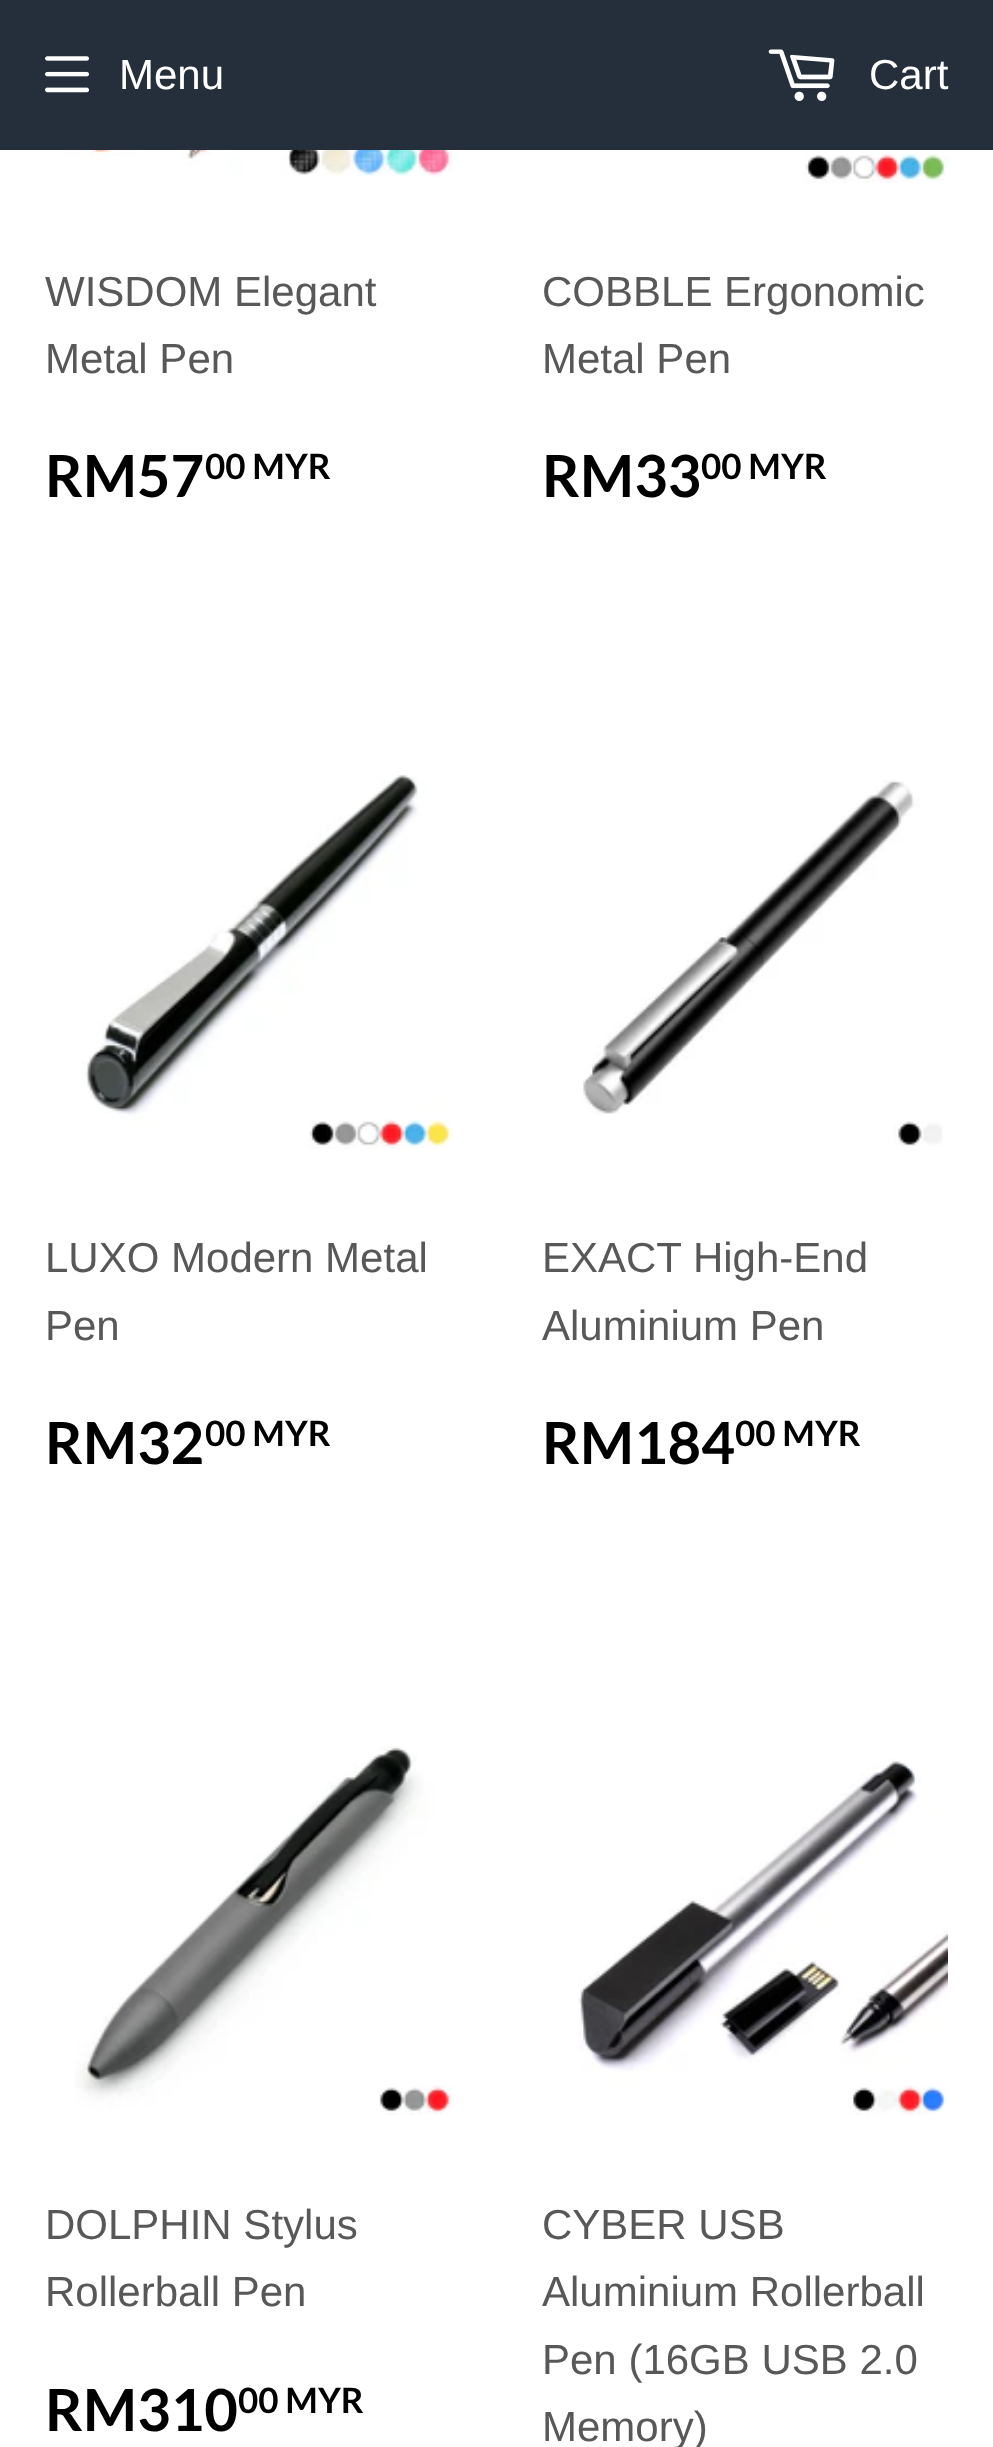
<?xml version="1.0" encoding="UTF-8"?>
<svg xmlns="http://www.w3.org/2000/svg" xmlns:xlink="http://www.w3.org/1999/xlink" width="993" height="2447">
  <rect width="100%" height="100%" fill="#ffffff" />
  <rect width="993" height="150" fill="#252f3b" />
  <image x="45" y="56" width="44" height="37" xlink:href="image1.png" />
  <image x="768" y="49" width="67" height="52" xlink:href="image2.png" />
  <image x="64" y="150" width="389" height="27" xlink:href="image3.png" />
  <image x="580" y="150" width="368" height="33" xlink:href="image4.png" />
  <image x="82" y="775" width="371" height="374" xlink:href="image5.png" />
  <image x="583" y="780" width="360" height="366" xlink:href="image6.png" />
  <image x="75" y="1746" width="378" height="369" xlink:href="image7.png" />
  <image x="578" y="1758" width="370" height="357" xlink:href="image8.png" />
  <text x="119" y="89" style="font-family: Liberation Sans; font-size: 42px; fill: #ffffff">Menu</text>
  <text x="869" y="89" style="font-family: Liberation Sans; font-size: 42px; fill: #ffffff">Cart</text>
  <text x="45" y="306" style="font-family: Liberation Sans; font-size: 42px; fill: #585858">WISDOM Elegant</text>
  <text x="45" y="373" style="font-family: Liberation Sans; font-size: 42px; fill: #585858">Metal Pen</text>
  <text x="45" y="497" style="font-family: Lato; font-size: 58px; font-weight: bold; fill: #000000">RM57</text>
  <text x="205" y="479" style="font-family: Lato; font-size: 35px; font-weight: bold; fill: #000000">00 MYR</text>
  <text x="542" y="306" style="font-family: Liberation Sans; font-size: 42px; fill: #585858">COBBLE Ergonomic</text>
  <text x="542" y="373" style="font-family: Liberation Sans; font-size: 42px; fill: #585858">Metal Pen</text>
  <text x="542" y="497" style="font-family: Lato; font-size: 58px; font-weight: bold; fill: #000000">RM33</text>
  <text x="701" y="479" style="font-family: Lato; font-size: 35px; font-weight: bold; fill: #000000">00 MYR</text>
  <text x="45" y="1272" style="font-family: Liberation Sans; font-size: 42px; fill: #585858">LUXO Modern Metal</text>
  <text x="45" y="1340" style="font-family: Liberation Sans; font-size: 42px; fill: #585858">Pen</text>
  <text x="45" y="1464" style="font-family: Lato; font-size: 58px; font-weight: bold; fill: #000000">RM32</text>
  <text x="205" y="1446" style="font-family: Lato; font-size: 35px; font-weight: bold; fill: #000000">00 MYR</text>
  <text x="542" y="1272" style="font-family: Liberation Sans; font-size: 42px; fill: #585858">EXACT High-End</text>
  <text x="542" y="1340" style="font-family: Liberation Sans; font-size: 42px; fill: #585858">Aluminium Pen</text>
  <text x="542" y="1464" style="font-family: Lato; font-size: 58px; font-weight: bold; fill: #000000">RM184</text>
  <text x="735" y="1446" style="font-family: Lato; font-size: 35px; font-weight: bold; fill: #000000">00 MYR</text>
  <text x="45" y="2239" style="font-family: Liberation Sans; font-size: 42px; fill: #585858">DOLPHIN Stylus</text>
  <text x="45" y="2306" style="font-family: Liberation Sans; font-size: 42px; fill: #585858">Rollerball Pen</text>
  <text x="45" y="2431" style="font-family: Lato; font-size: 58px; font-weight: bold; fill: #000000">RM310</text>
  <text x="238" y="2413" style="font-family: Lato; font-size: 35px; font-weight: bold; fill: #000000">00 MYR</text>
  <text x="542" y="2239" style="font-family: Liberation Sans; font-size: 42px; fill: #585858">CYBER USB</text>
  <text x="542" y="2306" style="font-family: Liberation Sans; font-size: 42px; fill: #585858">Aluminium Rollerball</text>
  <text x="542" y="2374" style="font-family: Liberation Sans; font-size: 42px; fill: #585858">Pen (16GB USB 2.0</text>
  <text x="542" y="2441" style="font-family: Liberation Sans; font-size: 42px; fill: #585858">Memory)</text>
</svg>
